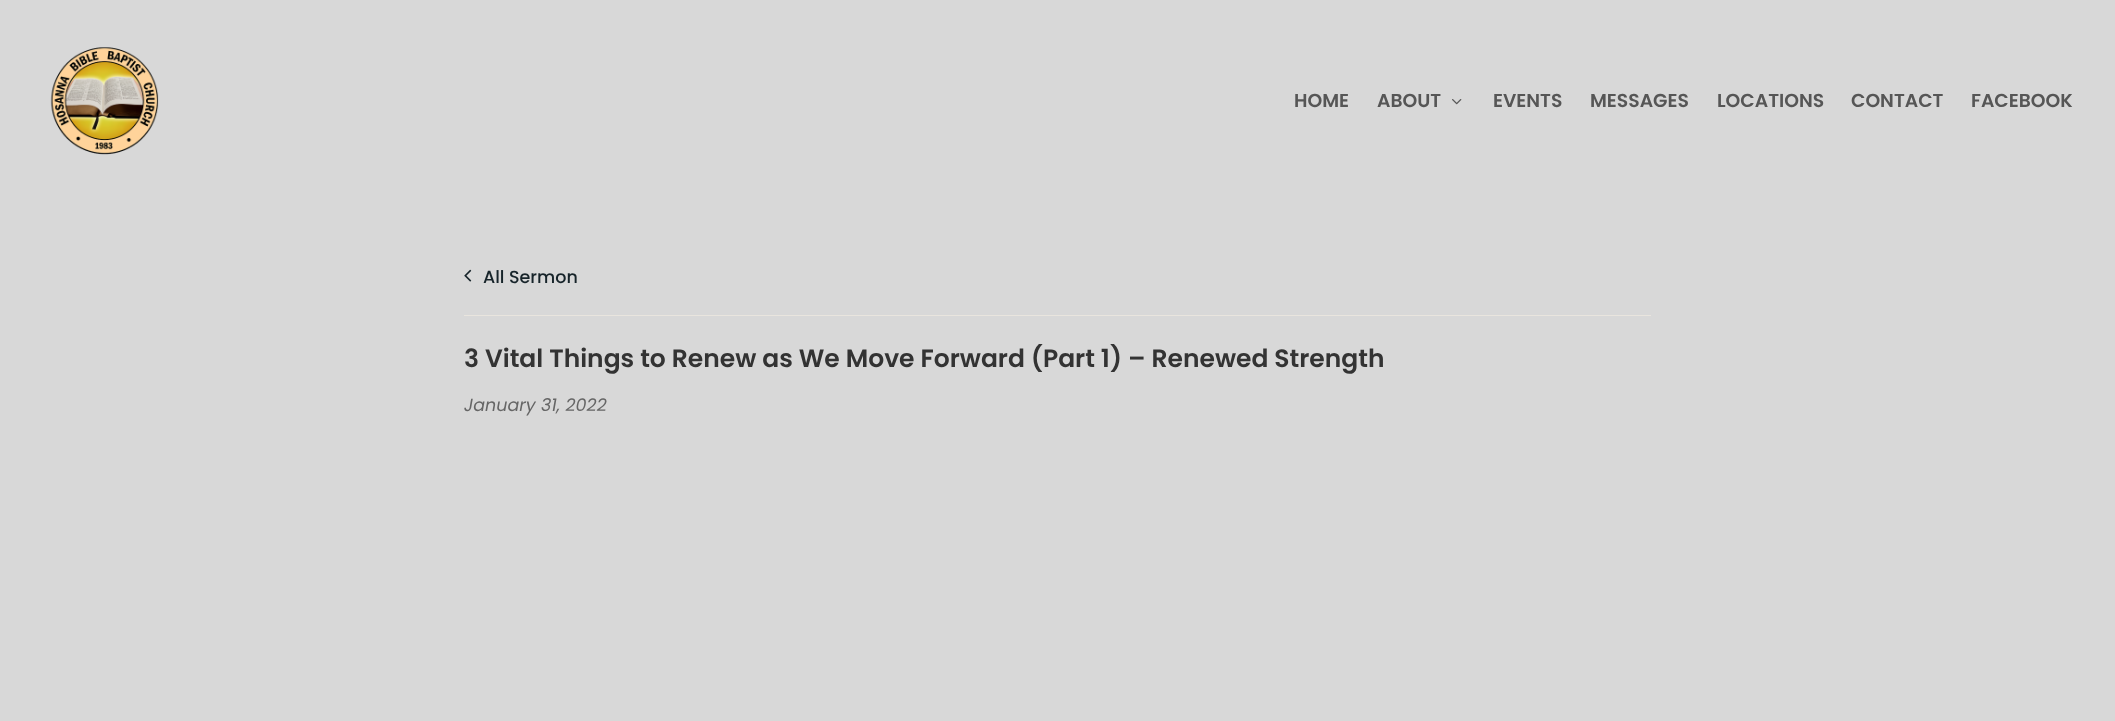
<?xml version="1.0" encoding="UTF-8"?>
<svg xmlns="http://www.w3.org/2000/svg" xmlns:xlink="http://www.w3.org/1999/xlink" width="2115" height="721">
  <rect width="100%" height="100%" fill="#d8d8d8" />
  <image x="50" y="47" width="109" height="108" xlink:href="image1.png" />
  <image x="1452" y="99" width="10" height="6" xlink:href="image2.png" />
  <rect x="464" y="315" width="1187" height="1" fill="#e9e5de" />
  <image x="464" y="269" width="8" height="13" xlink:href="image3.png" />
  <text x="1294" y="107" style="font-family: Poppins; font-size: 18.75px; font-weight: 600; fill: #565656">HOME</text>
  <text x="1377" y="107" style="font-family: Poppins; font-size: 18.75px; font-weight: 600; fill: #565656">ABOUT</text>
  <text x="1493" y="107" style="font-family: Poppins; font-size: 18.75px; font-weight: 600; fill: #565656">EVENTS</text>
  <text x="1590" y="107" style="font-family: Poppins; font-size: 18.75px; font-weight: 600; fill: #565656">MESSAGES</text>
  <text x="1717" y="107" style="font-family: Poppins; font-size: 18.75px; font-weight: 600; fill: #565656">LOCATIONS</text>
  <text x="1851" y="107" style="font-family: Poppins; font-size: 18.75px; font-weight: 600; fill: #565656">CONTACT</text>
  <text x="1971" y="107" style="font-family: Poppins; font-size: 18.75px; font-weight: 600; fill: #565656">FACEBOOK</text>
  <text x="483" y="283" style="font-family: Poppins; font-size: 17.5px; font-weight: 500; fill: #17242a">All Sermon</text>
  <text x="464" y="367" style="font-family: Poppins; font-size: 25px; font-weight: 600; fill: #333333">3 Vital Things to Renew as We Move Forward (Part 1) – Renewed Strength</text>
  <text x="464" y="411" style="font-family: Poppins; font-size: 17.5px; font-style: italic; fill: #666666">January 31, 2022</text>
</svg>
